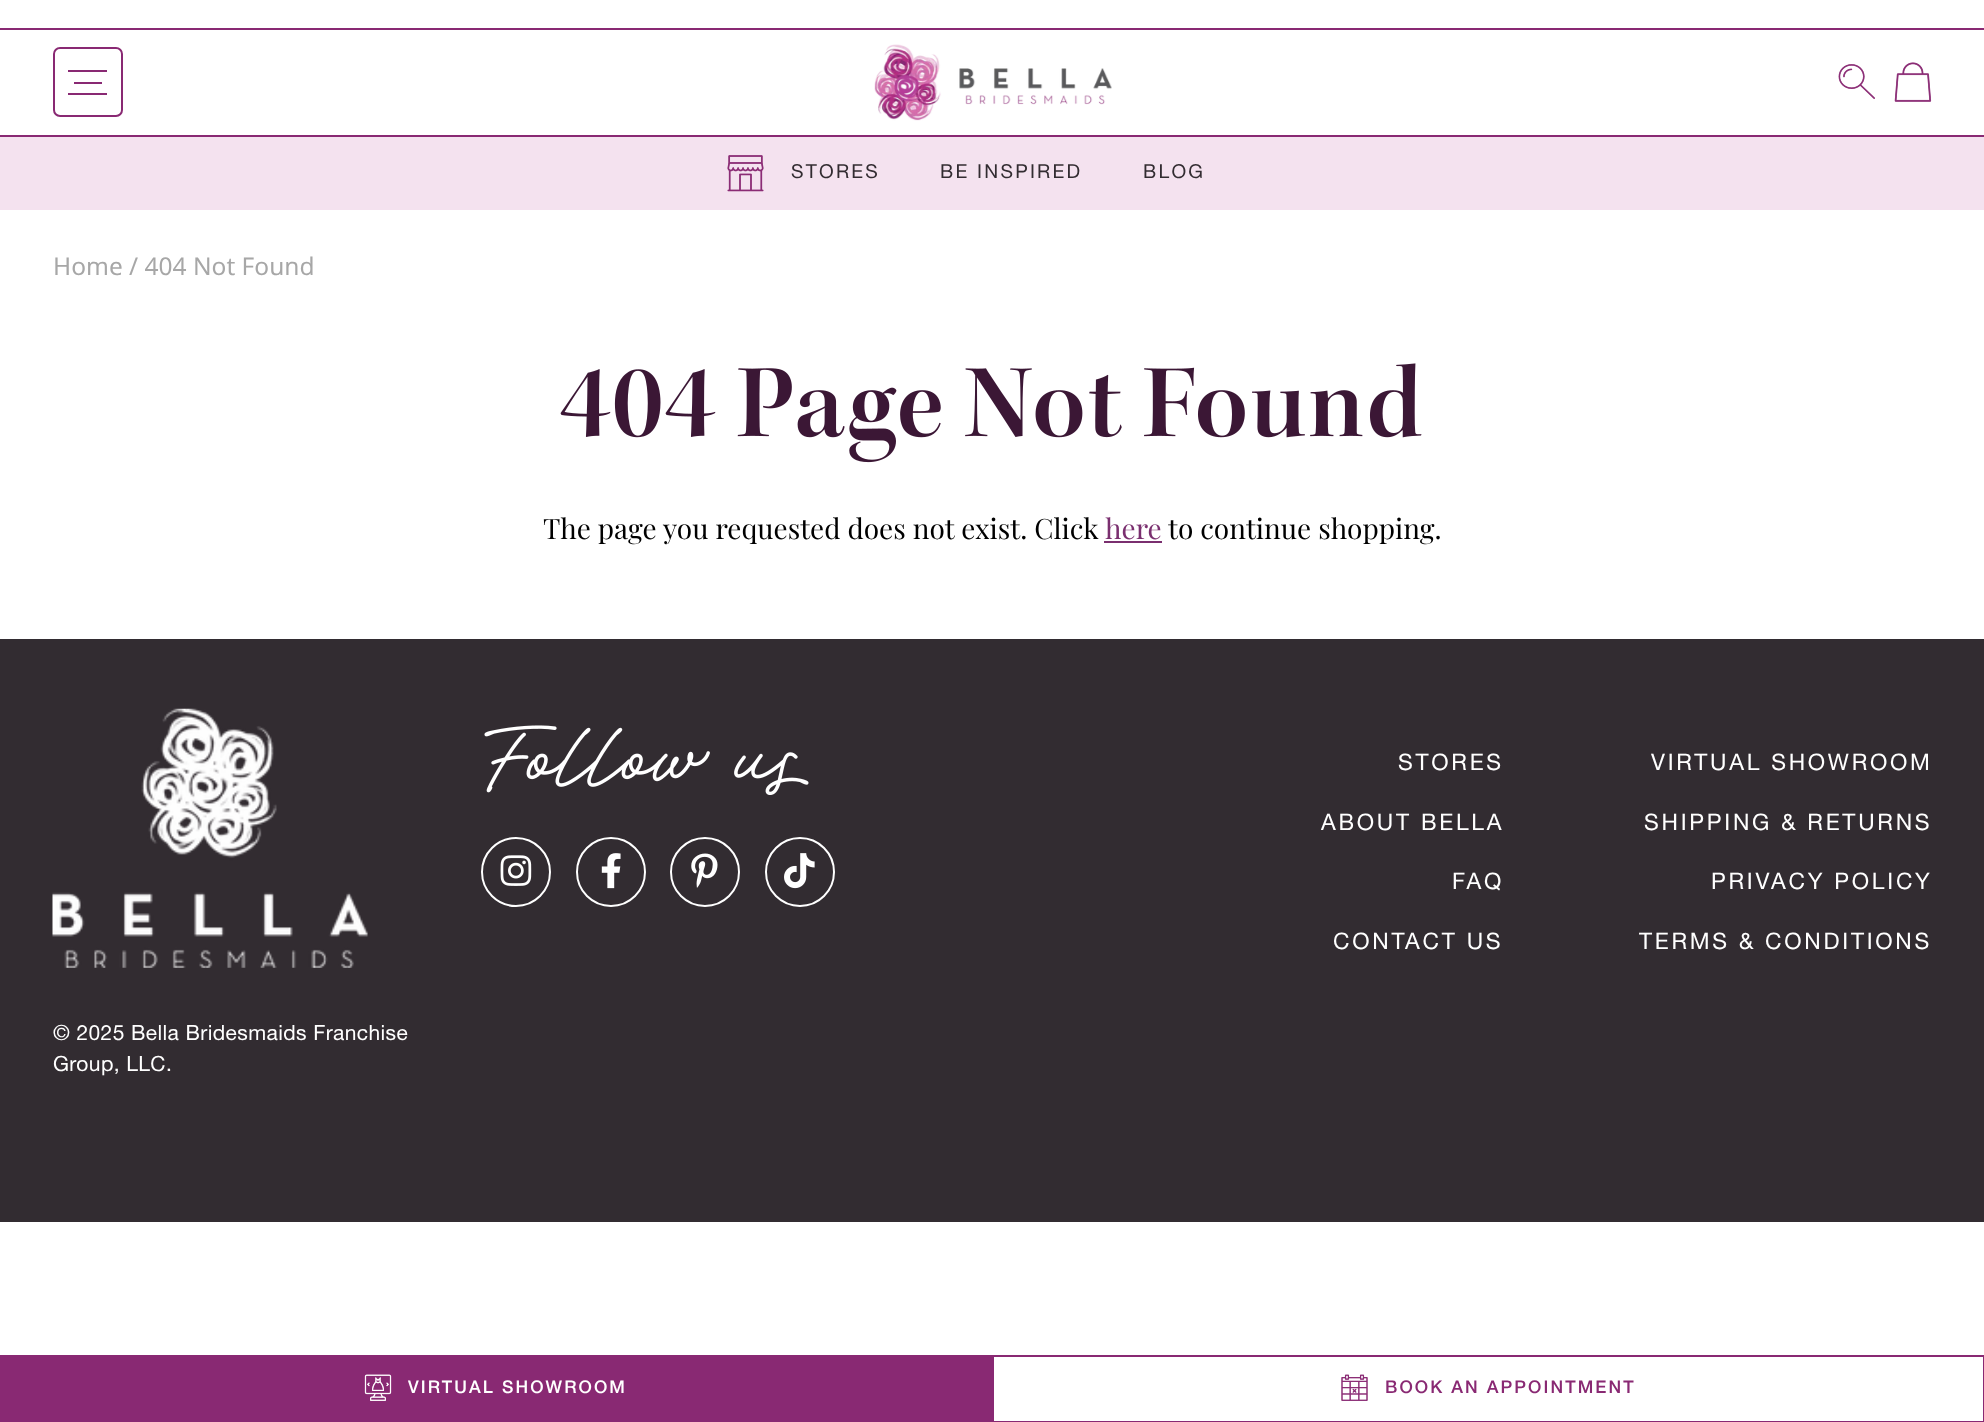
<?xml version="1.0" encoding="UTF-8"?>
<svg xmlns="http://www.w3.org/2000/svg" xmlns:xlink="http://www.w3.org/1999/xlink" width="1984" height="1422">
  <rect width="100%" height="100%" fill="#ffffff" />
  <rect y="137" width="1984" height="73" fill="#f4e2ef" />
  <image x="727" y="155" width="37" height="37" xlink:href="image1.png" />
  <rect y="135" width="1984" height="2" fill="#892973" />
  <rect y="28" width="1984" height="2" fill="#892973" />
  <rect x="54" y="48" width="68" height="68" rx="6" fill="none" stroke="#892973" stroke-width="2" />
  <rect x="68" y="70" width="39" height="2" fill="#892973" />
  <rect x="74" y="82" width="28" height="2" fill="#892973" />
  <rect x="68" y="93" width="39" height="2" fill="#892973" />
  <image x="874" y="44" width="238" height="77" xlink:href="image2.png" />
  <image x="1838" y="64" width="37" height="35" xlink:href="image3.png" />
  <image x="1894" y="62" width="38" height="40" xlink:href="image4.png" />
  <rect y="1355" width="992" height="67" fill="#892973" />
  <image x="364" y="1374" width="28" height="27" xlink:href="image5.png" />
  <rect x="993" y="1356" width="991" height="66" fill="none" stroke="#892973" stroke-width="2" />
  <image x="1341" y="1374" width="27" height="27" xlink:href="image6.png" />
  <image x="560" y="363" width="862" height="100" xlink:href="image7.png" />
  <rect x="1104" y="541" width="58" height="2" fill="#7a2f6f" />
  <rect y="639" width="1984" height="583" fill="#322c31" />
  <image x="484" y="725" width="325" height="70" xlink:href="image8.png" />
  <circle cx="516" cy="872" r="34" fill="none" stroke="#ffffff" stroke-width="2" />
  <image x="500" y="855" width="32" height="31" xlink:href="image9.png" />
  <circle cx="611" cy="872" r="34" fill="none" stroke="#ffffff" stroke-width="2" />
  <image x="601" y="853" width="20" height="36" xlink:href="image10.png" />
  <circle cx="705" cy="872" r="34" fill="none" stroke="#ffffff" stroke-width="2" />
  <image x="691" y="853" width="27" height="35" xlink:href="image11.png" />
  <circle cx="800" cy="872" r="34" fill="none" stroke="#ffffff" stroke-width="2" />
  <image x="784" y="853" width="31" height="36" xlink:href="image12.png" />
  <image x="52" y="708" width="316" height="260" xlink:href="image13.png" />
  <text x="791" y="178" style="font-family: Helvetica Neue; font-size: 19.25px; letter-spacing: 2.25px; fill: #322c31">STORES</text>
  <text x="940" y="178" style="font-family: Helvetica Neue; font-size: 19.25px; letter-spacing: 2.25px; fill: #322c31">BE INSPIRED</text>
  <text x="1143" y="178" style="font-family: Helvetica Neue; font-size: 19.25px; letter-spacing: 2.25px; fill: #322c31">BLOG</text>
  <text x="408" y="1393" style="font-family: Helvetica Neue; font-size: 17.5px; font-weight: 500; letter-spacing: 2.1px; fill: #ffffff">VIRTUAL SHOWROOM</text>
  <text x="1385" y="1393" style="font-family: Helvetica Neue; font-size: 17.5px; font-weight: 500; letter-spacing: 2.1px; fill: #892973">BOOK AN APPOINTMENT</text>
  <text x="53" y="275" style="font-family: Noto Sans; font-size: 24.5px; fill: #a7a7a7">Home / 404 Not Found</text>
  <text x="543" y="539" style="font-family: Playfair Display; font-size: 28px; fill: #000000">The page you requested does not exist. Click</text>
  <text x="1105" y="539" style="font-family: Playfair Display; font-size: 28px; fill: #7a2f6f">here</text>
  <text x="1168" y="539" style="font-family: Playfair Display; font-size: 28px; fill: #000000">to continue shopping.</text>
  <text x="1398" y="770" style="font-family: Helvetica Neue; font-size: 22.75px; letter-spacing: 2.75px; fill: #ffffff">STORES</text>
  <text x="1321" y="830" style="font-family: Helvetica Neue; font-size: 22.75px; letter-spacing: 2.75px; fill: #ffffff">ABOUT BELLA</text>
  <text x="1452" y="889" style="font-family: Helvetica Neue; font-size: 22.75px; letter-spacing: 2.75px; fill: #ffffff">FAQ</text>
  <text x="1333" y="949" style="font-family: Helvetica Neue; font-size: 22.75px; letter-spacing: 2.75px; fill: #ffffff">CONTACT US</text>
  <text x="1651" y="770" style="font-family: Helvetica Neue; font-size: 22.75px; letter-spacing: 2.75px; fill: #ffffff">VIRTUAL SHOWROOM</text>
  <text x="1644" y="830" style="font-family: Helvetica Neue; font-size: 22.75px; letter-spacing: 2.75px; fill: #ffffff">SHIPPING &amp; RETURNS</text>
  <text x="1711" y="889" style="font-family: Helvetica Neue; font-size: 22.75px; letter-spacing: 2.75px; fill: #ffffff">PRIVACY POLICY</text>
  <text x="1639" y="949" style="font-family: Helvetica Neue; font-size: 22.75px; letter-spacing: 2.75px; fill: #ffffff">TERMS &amp; CONDITIONS</text>
  <text x="53" y="1040" style="font-family: Helvetica Neue; font-size: 21px; letter-spacing: 0.4px; fill: #ffffff">© 2025 Bella Bridesmaids Franchise</text>
  <text x="53" y="1071" style="font-family: Helvetica Neue; font-size: 21px; letter-spacing: 0.4px; fill: #ffffff">Group, LLC.</text>
</svg>
